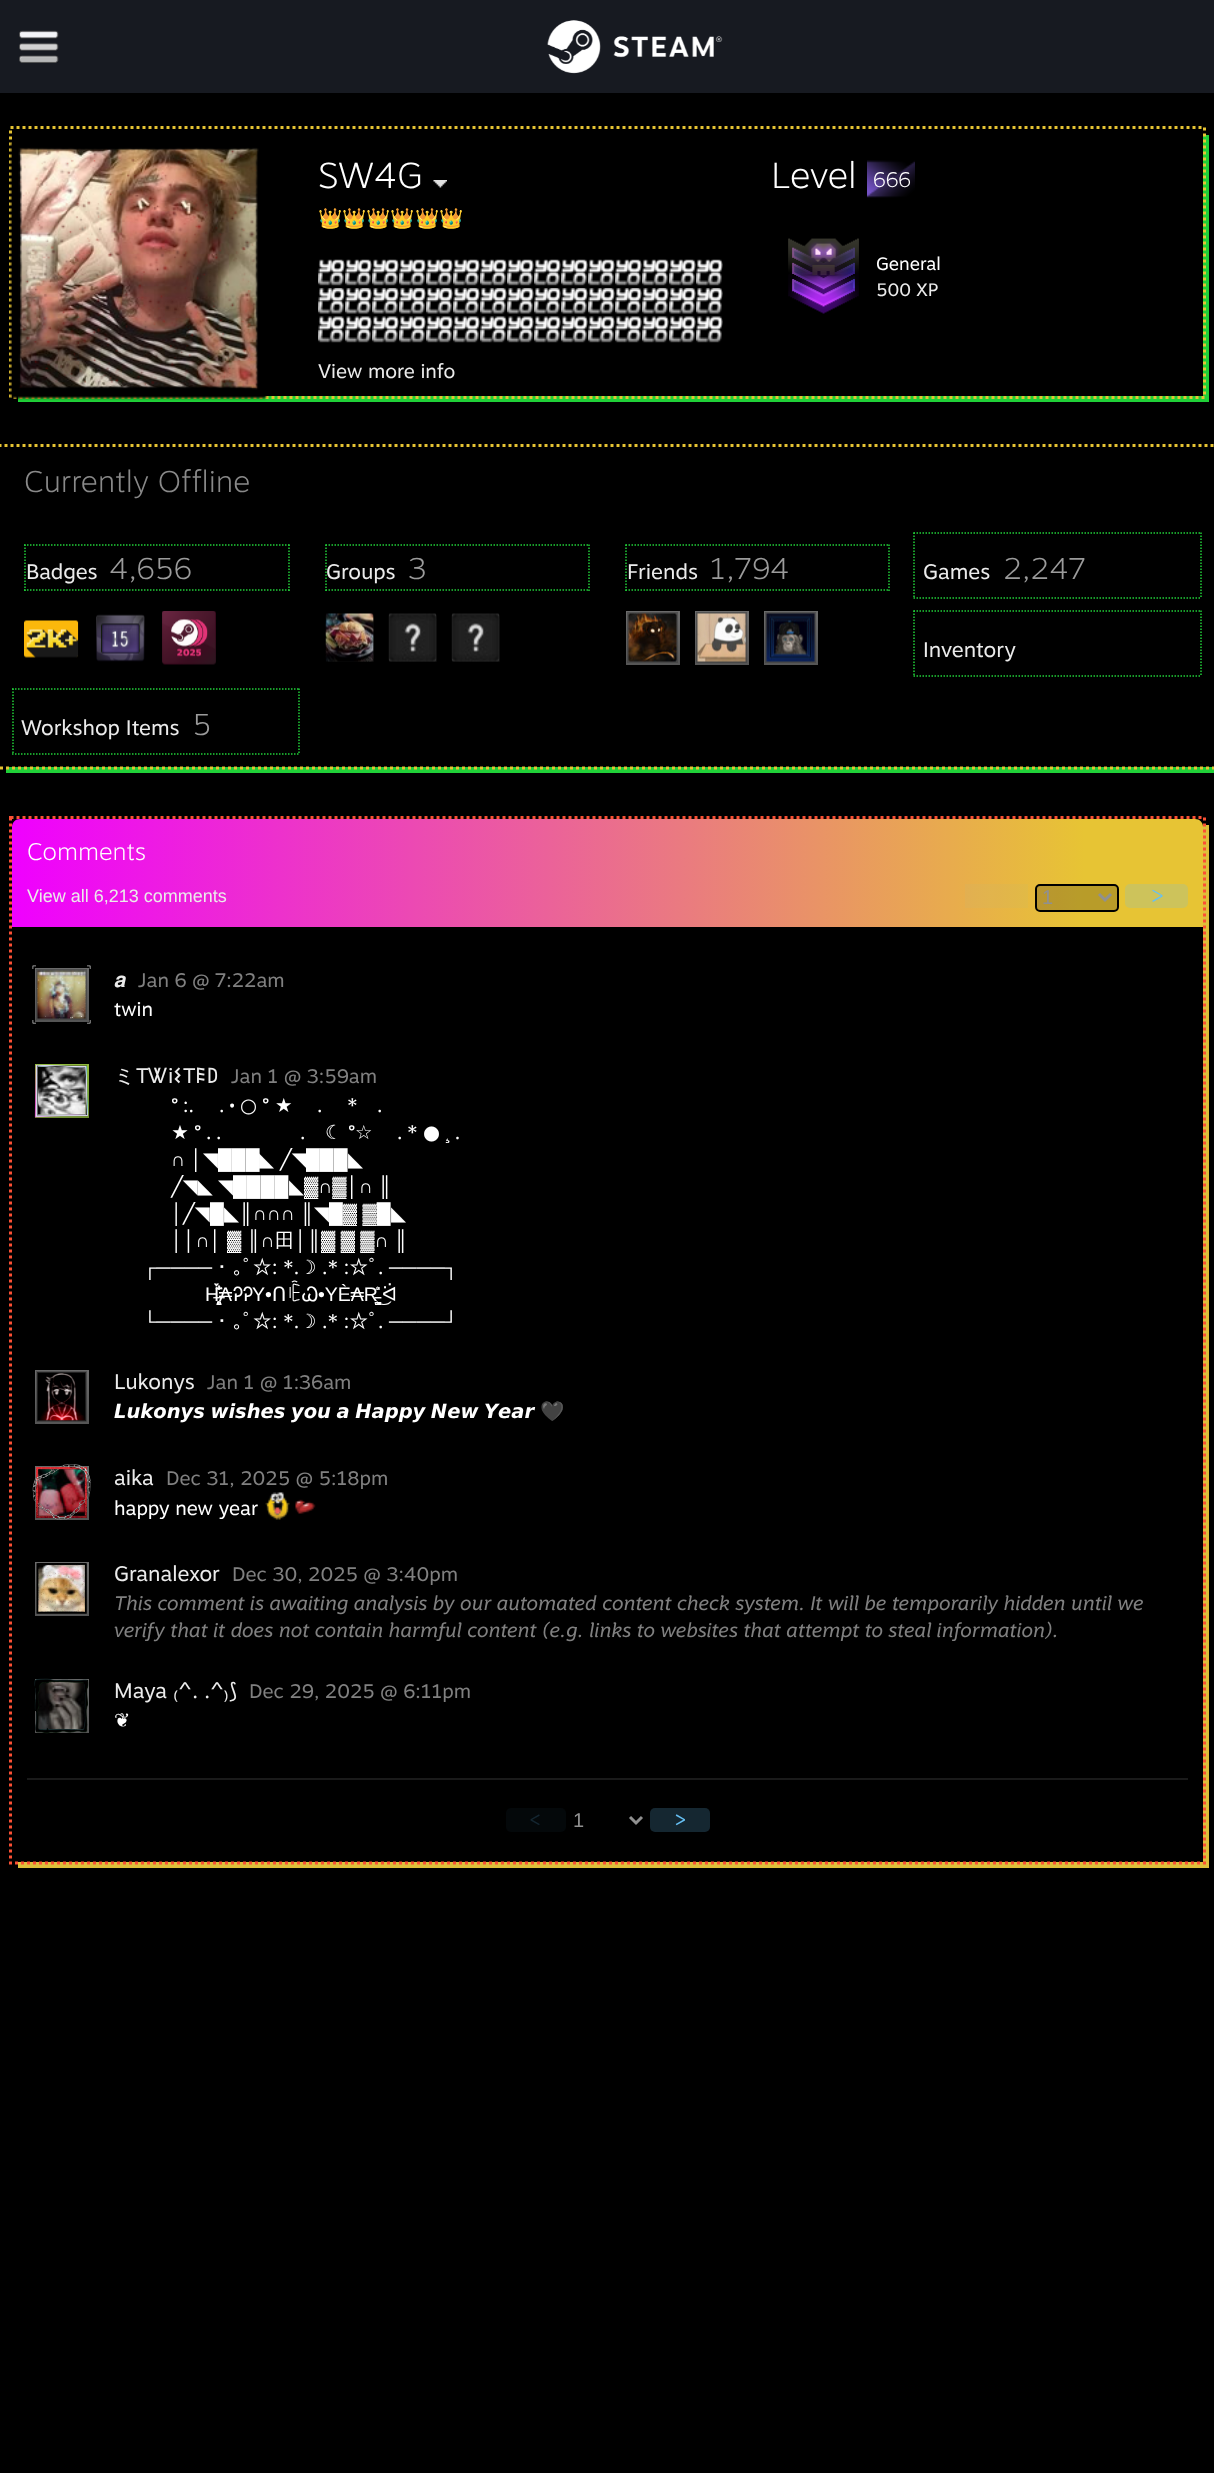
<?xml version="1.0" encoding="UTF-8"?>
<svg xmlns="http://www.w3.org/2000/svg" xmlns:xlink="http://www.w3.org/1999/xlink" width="1214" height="2473">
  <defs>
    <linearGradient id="g1" gradientUnits="userSpaceOnUse" x1="12" y1="873" x2="1203" y2="873"><stop offset="0" stop-color="#ef00ff" /><stop offset="0.9" stop-color="#e7c434" /></linearGradient>
    <linearGradient id="g2" gradientUnits="userSpaceOnUse" x1="62" y1="968" x2="62" y2="1022"><stop offset="0.05" stop-color="#6a6a6a" /><stop offset="0.95" stop-color="#555555" /></linearGradient>
    <linearGradient id="g3" gradientUnits="userSpaceOnUse" x1="62" y1="969" x2="62" y2="1020"><stop offset="0.05" stop-color="#515151" /><stop offset="0.95" stop-color="#474747" /></linearGradient>
    <linearGradient id="g4" gradientUnits="userSpaceOnUse" x1="62" y1="1064" x2="62" y2="1118"><stop offset="0.05" stop-color="#8fb93b" /><stop offset="0.95" stop-color="#6e8c31" /></linearGradient>
    <linearGradient id="g5" gradientUnits="userSpaceOnUse" x1="62" y1="1065" x2="62" y2="1116"><stop offset="0.05" stop-color="#66812e" /><stop offset="0.95" stop-color="#59702b" /></linearGradient>
    <linearGradient id="g6" gradientUnits="userSpaceOnUse" x1="62" y1="1370" x2="62" y2="1424"><stop offset="0.05" stop-color="#6a6a6a" /><stop offset="0.95" stop-color="#555555" /></linearGradient>
    <linearGradient id="g7" gradientUnits="userSpaceOnUse" x1="62" y1="1371" x2="62" y2="1422"><stop offset="0.05" stop-color="#515151" /><stop offset="0.95" stop-color="#474747" /></linearGradient>
    <linearGradient id="g8" gradientUnits="userSpaceOnUse" x1="62" y1="1466" x2="62" y2="1520"><stop offset="0.05" stop-color="#6a6a6a" /><stop offset="0.95" stop-color="#555555" /></linearGradient>
    <linearGradient id="g9" gradientUnits="userSpaceOnUse" x1="62" y1="1562" x2="62" y2="1616"><stop offset="0.05" stop-color="#6a6a6a" /><stop offset="0.95" stop-color="#555555" /></linearGradient>
    <linearGradient id="g10" gradientUnits="userSpaceOnUse" x1="62" y1="1563" x2="62" y2="1614"><stop offset="0.05" stop-color="#515151" /><stop offset="0.95" stop-color="#474747" /></linearGradient>
    <linearGradient id="g11" gradientUnits="userSpaceOnUse" x1="62" y1="1679" x2="62" y2="1733"><stop offset="0.05" stop-color="#6a6a6a" /><stop offset="0.95" stop-color="#555555" /></linearGradient>
    <linearGradient id="g12" gradientUnits="userSpaceOnUse" x1="62" y1="1680" x2="62" y2="1731"><stop offset="0.05" stop-color="#515151" /><stop offset="0.95" stop-color="#474747" /></linearGradient>
    <clipPath id="clip1"><rect x="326" y="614" width="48" height="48" /></clipPath>
    <clipPath id="clip2"><rect x="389" y="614" width="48" height="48" /></clipPath>
    <clipPath id="clip3"><rect x="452" y="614" width="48" height="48" /></clipPath>
    <linearGradient id="g13" gradientUnits="userSpaceOnUse" x1="653" y1="611" x2="653" y2="665"><stop offset="0.05" stop-color="#6a6a6a" /><stop offset="0.95" stop-color="#555555" /></linearGradient>
    <linearGradient id="g14" gradientUnits="userSpaceOnUse" x1="653" y1="612" x2="653" y2="663"><stop offset="0.05" stop-color="#515151" /><stop offset="0.95" stop-color="#474747" /></linearGradient>
    <linearGradient id="g15" gradientUnits="userSpaceOnUse" x1="722" y1="611" x2="722" y2="665"><stop offset="0.05" stop-color="#6a6a6a" /><stop offset="0.95" stop-color="#555555" /></linearGradient>
    <linearGradient id="g16" gradientUnits="userSpaceOnUse" x1="722" y1="612" x2="722" y2="663"><stop offset="0.05" stop-color="#515151" /><stop offset="0.95" stop-color="#474747" /></linearGradient>
    <linearGradient id="g17" gradientUnits="userSpaceOnUse" x1="791" y1="611" x2="791" y2="665"><stop offset="0.05" stop-color="#6a6a6a" /><stop offset="0.95" stop-color="#555555" /></linearGradient>
    <linearGradient id="g18" gradientUnits="userSpaceOnUse" x1="791" y1="612" x2="791" y2="663"><stop offset="0.05" stop-color="#515151" /><stop offset="0.95" stop-color="#474747" /></linearGradient>
  </defs>
  <rect width="100%" height="100%" fill="#000000" />
  <rect width="1214" height="93" fill="#171a21" />
  <image x="19" y="30" width="40" height="33" xlink:href="image1.png" />
  <image x="547" y="20" width="176" height="54" xlink:href="image2.png" />
  <path d="M 18 396 v 6 h 1191 v -267 h -6 v 261 z" fill="#20d038" />
  <path d="M 10.5 127.5 h 1194 v 270 h -1194 z" fill="none" stroke="#e6c333" stroke-width="3" stroke-dasharray="3 3" />
  <image x="18" y="147" width="241" height="243" xlink:href="image4.png" />
  <image x="9" y="142" width="259" height="259" xlink:href="image3.png" />
  <image x="433" y="180" width="14" height="8" xlink:href="image5.png" />
  <image x="318" y="259" width="27" height="27" xlink:href="image6.png" />
  <image x="345" y="259" width="27" height="27" xlink:href="image6.png" />
  <image x="372" y="259" width="27" height="27" xlink:href="image6.png" />
  <image x="399" y="259" width="27" height="27" xlink:href="image6.png" />
  <image x="426" y="259" width="27" height="27" xlink:href="image6.png" />
  <image x="453" y="259" width="27" height="27" xlink:href="image6.png" />
  <image x="480" y="259" width="27" height="27" xlink:href="image6.png" />
  <image x="507" y="259" width="27" height="27" xlink:href="image7.png" />
  <image x="534" y="259" width="27" height="27" xlink:href="image8.png" />
  <image x="561" y="259" width="27" height="27" xlink:href="image6.png" />
  <image x="588" y="259" width="27" height="27" xlink:href="image6.png" />
  <image x="615" y="259" width="27" height="27" xlink:href="image8.png" />
  <image x="642" y="259" width="27" height="27" xlink:href="image8.png" />
  <image x="669" y="259" width="27" height="27" xlink:href="image8.png" />
  <image x="696" y="259" width="27" height="27" xlink:href="image8.png" />
  <image x="318" y="288" width="27" height="26" xlink:href="image9.png" />
  <image x="345" y="288" width="27" height="26" xlink:href="image9.png" />
  <image x="372" y="288" width="27" height="26" xlink:href="image9.png" />
  <image x="399" y="288" width="27" height="26" xlink:href="image9.png" />
  <image x="426" y="288" width="27" height="26" xlink:href="image9.png" />
  <image x="453" y="288" width="27" height="26" xlink:href="image9.png" />
  <image x="480" y="288" width="27" height="26" xlink:href="image9.png" />
  <image x="507" y="288" width="27" height="26" xlink:href="image10.png" />
  <image x="534" y="288" width="27" height="26" xlink:href="image11.png" />
  <image x="561" y="288" width="27" height="26" xlink:href="image9.png" />
  <image x="588" y="288" width="27" height="26" xlink:href="image9.png" />
  <image x="615" y="288" width="27" height="26" xlink:href="image11.png" />
  <image x="642" y="288" width="27" height="26" xlink:href="image11.png" />
  <image x="669" y="288" width="27" height="26" xlink:href="image11.png" />
  <image x="696" y="288" width="27" height="26" xlink:href="image11.png" />
  <image x="318" y="316" width="27" height="27" xlink:href="image12.png" />
  <image x="345" y="316" width="27" height="27" xlink:href="image12.png" />
  <image x="372" y="316" width="27" height="27" xlink:href="image12.png" />
  <image x="399" y="316" width="27" height="27" xlink:href="image12.png" />
  <image x="426" y="316" width="27" height="27" xlink:href="image12.png" />
  <image x="453" y="316" width="27" height="27" xlink:href="image12.png" />
  <image x="480" y="316" width="27" height="27" xlink:href="image12.png" />
  <image x="507" y="316" width="27" height="27" xlink:href="image13.png" />
  <image x="534" y="316" width="27" height="27" xlink:href="image14.png" />
  <image x="561" y="316" width="27" height="27" xlink:href="image12.png" />
  <image x="588" y="316" width="27" height="27" xlink:href="image12.png" />
  <image x="615" y="316" width="27" height="27" xlink:href="image14.png" />
  <image x="642" y="316" width="27" height="27" xlink:href="image14.png" />
  <image x="669" y="316" width="27" height="27" xlink:href="image14.png" />
  <image x="696" y="316" width="27" height="27" xlink:href="image14.png" />
  <image x="867" y="160" width="48" height="38" xlink:href="image15.png" />
  <image x="788" y="238" width="71" height="76" xlink:href="image16.png" />
  <path d="M 6 766 v 7 h 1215 v -320 h -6 v 313 z" fill="#20d038" />
  <rect x="6" y="766" width="1208" height="1" fill="#000000" />
  <path d="M 18 1862 v 6 h 1191 v -1043 h -6 v 1037 z" fill="#debf3a" />
  <path d="M 10.5 817.5 h 1194 v 1045.5 h -1194 z" fill="none" stroke="#fb5034" stroke-width="3" stroke-dasharray="3 3" />
  <path d="M 20 819 h 1175 c 4.5 0 8 3.5 8 8 v 100 h -1191 v -100 c 0 -4.5 3.5 -8 8 -8 z" fill="url(#g1)" />
  <rect x="965" y="884" width="63" height="24" fill="#67c1f5" fill-opacity="0.04" />
  <rect x="1036" y="885" width="82" height="26" rx="4" fill="#000000" fill-opacity="0.2" stroke="#000000" stroke-width="2" />
  <path d="M 1099 894 l 6 6 l 6 -6" fill="none" stroke="#909090" stroke-width="3" />
  <rect x="1125" y="884" width="63" height="24" rx="5" fill="#cdc35b" />
  <rect x="35" y="968" width="54" height="54" fill="url(#g2)" />
  <rect x="36" y="969" width="51" height="51" fill="url(#g3)" />
  <image x="37" y="970" width="49" height="49" xlink:href="image26.png" />
  <image x="32" y="965" width="59" height="59" xlink:href="image25.png" />
  <rect x="35" y="1064" width="54" height="54" fill="url(#g4)" />
  <rect x="36" y="1065" width="51" height="50" fill="url(#g5)" />
  <image x="37" y="1066" width="49" height="49" xlink:href="image28.png" />
  <image x="34" y="1064" width="55" height="54" xlink:href="image27.png" />
  <rect x="35" y="1370" width="54" height="54" fill="url(#g6)" />
  <rect x="36" y="1371" width="51" height="51" fill="url(#g7)" />
  <image x="37" y="1372" width="49" height="49" xlink:href="image29.png" />
  <image x="37" y="1372" width="50" height="50" xlink:href="image30.png" />
  <rect x="35" y="1466" width="54" height="54" fill="url(#g8)" />
  <image x="38" y="1469" width="47" height="47" xlink:href="image32.png" />
  <image x="32" y="1464" width="59" height="56" xlink:href="image31.png" />
  <image x="265" y="1492" width="25" height="28" xlink:href="image33.png" />
  <image x="295" y="1499" width="21" height="15" xlink:href="image34.png" />
  <rect x="35" y="1562" width="54" height="54" fill="url(#g9)" />
  <rect x="36" y="1563" width="51" height="51" fill="url(#g10)" />
  <image x="38" y="1564" width="47" height="48" xlink:href="image36.png" />
  <image x="36" y="1563" width="51" height="51" xlink:href="image35.png" />
  <rect x="35" y="1679" width="54" height="54" fill="url(#g11)" />
  <rect x="42" y="1708" width="45" height="22" fill="url(#g12)" />
  <image x="38" y="1682" width="47" height="48" xlink:href="image38.png" />
  <image x="34" y="1678" width="55" height="56" xlink:href="image37.png" />
  <rect x="27" y="1778" width="1161" height="2" fill="#1a1a1a" />
  <rect x="506" y="1808" width="60" height="24" rx="5" fill="#04080a" />
  <path d="M 630 1817 l 6 6 l 6 -6" fill="none" stroke="#909090" stroke-width="3" />
  <rect x="650" y="1808" width="60" height="24" rx="5" fill="#152731" />
  <text x="318" y="188" style="font-family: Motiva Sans; font-size: 36px; font-weight: 100; fill: #ffffff">SW4G</text>
  <text x="318" y="225" style="font-family: Noto Color Emoji; font-size: 19.5px; fill: #c4c4c4">👑👑👑👑👑👑</text>
  <text x="318" y="378" style="font-family: Motiva Sans; font-size: 19.5px; fill: #ebebeb">View more info</text>
  <text x="771" y="188" style="font-family: Motiva Sans; font-size: 36px; font-weight: 100; fill: #ffffff">Level</text>
  <text x="873" y="187" style="font-family: Motiva Sans; font-size: 21px; font-weight: 100; fill: #ffffff">666</text>
  <text x="876" y="270" style="font-family: Motiva Sans; font-size: 18px; fill: #ffffff">General</text>
  <text x="876" y="296" style="font-family: Motiva Sans; font-size: 18px; fill: #ebebeb">500 XP</text>
  <text x="24" y="492" style="font-family: Motiva Sans; font-size: 30px; font-weight: 100; fill: #898989">Currently Offline</text>
  <path d="M -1.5 445.5 h 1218 v 322.5 h -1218 z" fill="none" stroke="#e6c333" stroke-width="3" stroke-dasharray="3 3" />
  <path d="M 913.5 533 h 288" fill="none" stroke="#20d038" stroke-width="1.5" stroke-dasharray="1.5 1.5" />
  <path d="M 1201 532.5 v 66" fill="none" stroke="#20d038" stroke-width="1.5" stroke-dasharray="1.5 1.5" />
  <path d="M 913.5 598 h 288" fill="none" stroke="#20d038" stroke-width="1.5" stroke-dasharray="1.5 1.5" />
  <path d="M 914 532.5 v 66" fill="none" stroke="#20d038" stroke-width="1.5" stroke-dasharray="1.5 1.5" />
  <text x="923" y="579" style="font-family: Motiva Sans; font-size: 21px; fill: #ebebeb">Games</text>
  <text x="1003" y="579" style="font-family: Motiva Sans; font-size: 30px; font-weight: 100; fill: #9b9b9b">2,247</text>
  <path d="M 913.5 611 h 288" fill="none" stroke="#20d038" stroke-width="1.5" stroke-dasharray="1.5 1.5" />
  <path d="M 1201 610.5 v 66" fill="none" stroke="#20d038" stroke-width="1.5" stroke-dasharray="1.5 1.5" />
  <path d="M 913.5 676 h 288" fill="none" stroke="#20d038" stroke-width="1.5" stroke-dasharray="1.5 1.5" />
  <path d="M 914 610.5 v 66" fill="none" stroke="#20d038" stroke-width="1.5" stroke-dasharray="1.5 1.5" />
  <text x="923" y="657" style="font-family: Motiva Sans; font-size: 21px; fill: #ebebeb">Inventory</text>
  <path d="M 12 689 h 288" fill="none" stroke="#20d038" stroke-width="1.5" stroke-dasharray="1.5 1.5" />
  <path d="M 299 688.5 v 66" fill="none" stroke="#20d038" stroke-width="1.5" stroke-dasharray="1.5 1.5" />
  <path d="M 12 754 h 288" fill="none" stroke="#20d038" stroke-width="1.5" stroke-dasharray="1.5 1.5" />
  <path d="M 13 688.5 v 66" fill="none" stroke="#20d038" stroke-width="1.5" stroke-dasharray="1.5 1.5" />
  <text x="21" y="735" style="font-family: Motiva Sans; font-size: 21px; fill: #ebebeb">Workshop Items</text>
  <text x="192" y="735" style="font-family: Motiva Sans; font-size: 30px; font-weight: 100; fill: #9b9b9b">5</text>
  <path d="M 24 545 h 265.5" fill="none" stroke="#20d038" stroke-width="1.5" stroke-dasharray="1.5 1.5" />
  <path d="M 289 544.5 v 46.5" fill="none" stroke="#20d038" stroke-width="1.5" stroke-dasharray="1.5 1.5" />
  <path d="M 24 590 h 265.5" fill="none" stroke="#20d038" stroke-width="1.5" stroke-dasharray="1.5 1.5" />
  <path d="M 25 544.5 v 46.5" fill="none" stroke="#20d038" stroke-width="1.5" stroke-dasharray="1.5 1.5" />
  <text x="26" y="579" style="font-family: Motiva Sans; font-size: 21px; fill: #ebebeb">Badges</text>
  <text x="109" y="579" style="font-family: Motiva Sans; font-size: 30px; font-weight: 100; fill: #9b9b9b">4,656</text>
  <image x="24" y="620" width="55" height="38" xlink:href="image17.png" />
  <image x="96" y="614" width="49" height="48" xlink:href="image18.png" />
  <image x="162" y="611" width="54" height="54" xlink:href="image19.png" />
  <path d="M 325.5 545 h 264" fill="none" stroke="#20d038" stroke-width="1.5" stroke-dasharray="1.5 1.5" />
  <path d="M 589 544.5 v 46.5" fill="none" stroke="#20d038" stroke-width="1.5" stroke-dasharray="1.5 1.5" />
  <path d="M 325.5 590 h 264" fill="none" stroke="#20d038" stroke-width="1.5" stroke-dasharray="1.5 1.5" />
  <path d="M 326 544.5 v 46.5" fill="none" stroke="#20d038" stroke-width="1.5" stroke-dasharray="1.5 1.5" />
  <text x="326" y="579" style="font-family: Motiva Sans; font-size: 21px; fill: #ebebeb">Groups</text>
  <text x="408" y="579" style="font-family: Motiva Sans; font-size: 30px; font-weight: 100; fill: #9b9b9b">3</text>
  <g clip-path="url(#clip1)">
    <rect x="329" y="617" width="48" height="48" fill="#0c0c0c" filter="blur(2px)" />
  </g>
  <image x="325" y="613" width="49" height="49" xlink:href="image20.png" />
  <g clip-path="url(#clip2)">
    <rect x="392" y="617" width="48" height="48" fill="#0c0c0c" filter="blur(2px)" />
  </g>
  <image x="388" y="613" width="49" height="49" xlink:href="image21.png" />
  <g clip-path="url(#clip3)">
    <rect x="455" y="617" width="48" height="48" fill="#0c0c0c" filter="blur(2px)" />
  </g>
  <image x="451" y="613" width="49" height="49" xlink:href="image21.png" />
  <path d="M 625.5 545 h 264" fill="none" stroke="#20d038" stroke-width="1.5" stroke-dasharray="1.5 1.5" />
  <path d="M 889 544.5 v 46.5" fill="none" stroke="#20d038" stroke-width="1.5" stroke-dasharray="1.5 1.5" />
  <path d="M 625.5 590 h 264" fill="none" stroke="#20d038" stroke-width="1.5" stroke-dasharray="1.5 1.5" />
  <path d="M 626 544.5 v 46.5" fill="none" stroke="#20d038" stroke-width="1.5" stroke-dasharray="1.5 1.5" />
  <text x="627" y="579" style="font-family: Motiva Sans; font-size: 21px; fill: #ebebeb">Friends</text>
  <text x="710" y="579" style="font-family: Motiva Sans; font-size: 30px; font-weight: 100; fill: #9b9b9b">1,794</text>
  <rect x="626" y="611" width="54" height="54" fill="url(#g13)" />
  <rect x="627" y="612" width="51" height="51" fill="url(#g14)" />
  <image x="628" y="613" width="49" height="49" xlink:href="image22.png" />
  <rect x="695" y="611" width="54" height="54" fill="url(#g15)" />
  <rect x="696" y="612" width="51" height="51" fill="url(#g16)" />
  <image x="697" y="613" width="50" height="49" xlink:href="image23.png" />
  <rect x="764" y="611" width="54" height="54" fill="url(#g17)" />
  <rect x="765" y="612" width="51" height="51" fill="url(#g18)" />
  <image x="766" y="613" width="49" height="49" xlink:href="image24.png" />
  <text x="27" y="860" style="font-family: Motiva Sans; font-size: 24px; font-weight: 100; fill: #ffffff">Comments</text>
  <text x="27" y="902" style="font-family: Liberation Sans; font-size: 18px; fill: #ebebeb">View all 6,213 comments</text>
  <text x="1042" y="904" style="font-family: Liberation Sans; font-size: 20px; fill: #909090">1</text>
  <text x="1150" y="904" style="font-family: Motiva Sans; font-size: 24px; font-weight: 100; fill: #66c0f4">&gt;</text>
  <text x="114" y="987" style="font-family: FreeSans; font-size: 21px; fill: #ebebeb">𝒂</text>
  <text x="138" y="987" style="font-family: Motiva Sans; font-size: 19.5px; fill: #808080">Jan 6 @ 7:22am</text>
  <text x="114" y="1016" style="font-family: Motiva Sans; font-size: 19.5px; fill: #ffffff">twin</text>
  <text x="114" y="1083" style="font-family: WenQuanYi Zen Hei; font-size: 21px; font-weight: 500; fill: #ebebeb">ミ</text>
  <text x="136" y="1083" style="font-family: Motiva Sans; font-size: 21px; fill: #ebebeb">T</text>
  <text x="148" y="1083" style="font-family: FreeSans; font-size: 21px; fill: #ebebeb">Ꮤ</text>
  <text x="168" y="1083" style="font-family: Motiva Sans; font-size: 21px; fill: #ebebeb">i</text>
  <text x="173" y="1083" style="font-family: DejaVu Sans; font-size: 21px; fill: #ebebeb">𐌔</text>
  <text x="183" y="1083" style="font-family: Motiva Sans; font-size: 21px; fill: #ebebeb">T</text>
  <text x="195" y="1083" style="font-family: DejaVu Sans; font-size: 21px; fill: #ebebeb">𐌄𐌃</text>
  <text x="231" y="1083" style="font-family: Motiva Sans; font-size: 19.5px; fill: #808080">Jan 1 @ 3:59am</text>
  <text x="171" y="1112" word-spacing="-1" style="font-family: Motiva Sans; font-size: 19.5px; fill: #ffffff">° :.</text>
  <text x="219" y="1112" word-spacing="-1" style="font-family: Motiva Sans; font-size: 19.5px; fill: #ffffff">. •</text>
  <text x="240" y="1112" style="font-family: DejaVu Sans; font-size: 19.5px; fill: #ffffff">○</text>
  <text x="262" y="1112" style="font-family: Motiva Sans; font-size: 19.5px; fill: #ffffff">°</text>
  <text x="275" y="1112" style="font-family: DejaVu Sans; font-size: 19.5px; fill: #ffffff">★</text>
  <text x="317" y="1112" style="font-family: Motiva Sans; font-size: 19.5px; fill: #ffffff">.</text>
  <text x="347" y="1112" style="font-family: Motiva Sans; font-size: 19.5px; fill: #ffffff">*</text>
  <text x="377" y="1112" style="font-family: Motiva Sans; font-size: 19.5px; fill: #ffffff">.</text>
  <text x="114" y="1139" style="font-family: DejaVu Sans; font-size: 19.5px; fill: #ffffff">⠀⠀⠀⠀★</text>
  <text x="194" y="1139" word-spacing="-1" style="font-family: Motiva Sans; font-size: 19.5px; fill: #ffffff">° . .</text>
  <text x="300" y="1139" style="font-family: Motiva Sans; font-size: 19.5px; fill: #ffffff">.</text>
  <text x="325" y="1139" style="font-family: DejaVu Sans; font-size: 19.5px; fill: #ffffff">☾</text>
  <text x="348" y="1139" style="font-family: Motiva Sans; font-size: 19.5px; fill: #ffffff">°</text>
  <text x="355" y="1139" style="font-family: DejaVu Sans; font-size: 19.5px; fill: #ffffff">☆</text>
  <text x="397" y="1139" word-spacing="-1" style="font-family: Motiva Sans; font-size: 19.5px; fill: #ffffff">. *</text>
  <text x="423" y="1139" style="font-family: DejaVu Sans; font-size: 19.5px; fill: #ffffff">●</text>
  <text x="445" y="1139" word-spacing="-1" style="font-family: Motiva Sans; font-size: 19.5px; fill: #ffffff">¸ .</text>
  <text x="171" y="1166" style="font-family: Liberation Sans; font-size: 19.5px; fill: #ffffff">∩ │</text>
  <text x="203" y="1166" style="font-family: DejaVu Sans; font-size: 19.5px; fill: #ffffff">◥</text>
  <text x="218" y="1166" style="font-family: Liberation Sans; font-size: 19.5px; fill: #ffffff">███</text>
  <text x="259" y="1166" style="font-family: DejaVu Sans; font-size: 19.5px; fill: #ffffff">◣</text>
  <text x="280" y="1166" style="font-family: DejaVu Sans; font-size: 19.5px; fill: #ffffff">╱◥</text>
  <text x="306" y="1166" style="font-family: Liberation Sans; font-size: 19.5px; fill: #ffffff">███</text>
  <text x="348" y="1166" style="font-family: DejaVu Sans; font-size: 19.5px; fill: #ffffff">◣</text>
  <text x="114" y="1193" style="font-family: DejaVu Sans; font-size: 19.5px; fill: #ffffff">⠀⠀⠀⠀╱◥◣</text>
  <text x="218" y="1193" style="font-family: DejaVu Sans; font-size: 19.5px; fill: #ffffff">◥</text>
  <text x="233" y="1193" style="font-family: Liberation Sans; font-size: 19.5px; fill: #ffffff">████</text>
  <text x="289" y="1193" style="font-family: DejaVu Sans; font-size: 19.5px; fill: #ffffff">◣</text>
  <text x="304" y="1193" style="font-family: Liberation Sans; font-size: 19.5px; fill: #ffffff">▓∩▓│∩ ║</text>
  <text x="171" y="1220" style="font-family: Liberation Sans; font-size: 19.5px; fill: #ffffff">│</text>
  <text x="183" y="1220" style="font-family: DejaVu Sans; font-size: 19.5px; fill: #ffffff">╱◥</text>
  <text x="210" y="1220" style="font-family: Liberation Sans; font-size: 19.5px; fill: #ffffff">█</text>
  <text x="224" y="1220" style="font-family: DejaVu Sans; font-size: 19.5px; fill: #ffffff">◣</text>
  <text x="239" y="1220" style="font-family: Liberation Sans; font-size: 19.5px; fill: #ffffff">║∩∩∩ ║</text>
  <text x="314" y="1220" style="font-family: DejaVu Sans; font-size: 19.5px; fill: #ffffff">◥</text>
  <text x="329" y="1220" style="font-family: Liberation Sans; font-size: 19.5px; fill: #ffffff">█▓ ▓█</text>
  <text x="391" y="1220" style="font-family: DejaVu Sans; font-size: 19.5px; fill: #ffffff">◣</text>
  <text x="171" y="1247" style="font-family: Liberation Sans; font-size: 19.5px; fill: #ffffff">││∩│ ▓ ║∩</text>
  <text x="275" y="1247" style="font-family: WenQuanYi Zen Hei; font-size: 19.5px; font-weight: 500; fill: #ffffff">田</text>
  <text x="295" y="1247" style="font-family: Liberation Sans; font-size: 19.5px; fill: #ffffff">│║▓ ▓ ▓∩ ║</text>
  <text x="217" y="1274" style="font-family: IPAGothic; font-size: 19.5px; fill: #ffffff">･</text>
  <text x="233" y="1274" style="font-family: IPAGothic; font-size: 19.5px; fill: #ffffff">｡ﾟ☆</text>
  <text x="272" y="1274" style="font-family: Motiva Sans; font-size: 19.5px; fill: #ffffff">: *.</text>
  <text x="299" y="1274" style="font-family: DejaVu Sans; font-size: 19.5px; fill: #ffffff">☽</text>
  <text x="322" y="1274" style="font-family: Motiva Sans; font-size: 19.5px; fill: #ffffff">.* :</text>
  <text x="349" y="1274" style="font-family: IPAGothic; font-size: 19.5px; fill: #ffffff">☆ﾟ</text>
  <text x="143" y="1274" style="font-family: Liberation Sans; font-size: 19.5px; fill: #ffffff">┌────</text>
  <text x="378" y="1274" style="font-family: Motiva Sans; font-size: 19.5px; fill: #ffffff">.</text>
  <text x="389" y="1274" style="font-family: Liberation Sans; font-size: 19.5px; fill: #ffffff">────┐</text>
  <text x="205" y="1301" style="font-family: Liberation Sans; font-size: 19.5px; fill: #ffffff">H̶̨͈̯̻̐̍̇̀̈́́₳</text>
  <text x="233" y="1301" style="font-family: FreeSans; font-size: 19.5px; fill: #ffffff">ᎮᎮ</text>
  <text x="252" y="1301" style="font-family: Liberation Sans; font-size: 19.5px; fill: #ffffff">Y•</text>
  <text x="272" y="1301" style="font-family: DejaVu Sans; font-size: 19.5px; fill: #ffffff">ᑎ</text>
  <text x="287" y="1301" style="font-family: Nuosu SIL; font-size: 19.5px; fill: #ffffff">ꍟ</text>
  <text x="302" y="1301" style="font-family: FreeSans; font-size: 19.5px; fill: #ffffff">Ꮗ</text>
  <text x="318" y="1301" style="font-family: Liberation Sans; font-size: 19.5px; fill: #ffffff">•YÈ₳R̵̫̳̎͗͜</text>
  <text x="382" y="1301" style="font-family: DejaVu Sans; font-size: 19.5px; fill: #ffffff">ᐛ</text>
  <text x="143" y="1328" style="font-family: Liberation Sans; font-size: 19.5px; fill: #ffffff">└────</text>
  <text x="217" y="1328" style="font-family: IPAGothic; font-size: 19.5px; fill: #ffffff">･</text>
  <text x="233" y="1328" style="font-family: IPAGothic; font-size: 19.5px; fill: #ffffff">｡ﾟ☆</text>
  <text x="272" y="1328" style="font-family: Motiva Sans; font-size: 19.5px; fill: #ffffff">: *.</text>
  <text x="299" y="1328" style="font-family: DejaVu Sans; font-size: 19.5px; fill: #ffffff">☽</text>
  <text x="322" y="1328" style="font-family: Motiva Sans; font-size: 19.5px; fill: #ffffff">.* :</text>
  <text x="349" y="1328" style="font-family: IPAGothic; font-size: 19.5px; fill: #ffffff">☆ﾟ</text>
  <text x="389" y="1328" style="font-family: Liberation Sans; font-size: 19.5px; fill: #ffffff">────┘</text>
  <text x="378" y="1328" style="font-family: Motiva Sans; font-size: 19.5px; fill: #ffffff">.</text>
  <text x="114" y="1389" style="font-family: Motiva Sans; font-size: 21px; fill: #ebebeb">Lukonys</text>
  <text x="207" y="1389" style="font-family: Motiva Sans; font-size: 19.5px; fill: #808080">Jan 1 @ 1:36am</text>
  <text x="114" y="1418" word-spacing="-1.25" style="font-family: DejaVu Sans; font-size: 19.5px; font-weight: bold; font-style: italic; fill: #ffffff">𝙇𝙪𝙠𝙤𝙣𝙮𝙨 𝙬𝙞𝙨𝙝𝙚𝙨 𝙮𝙤𝙪 𝙖 𝙃𝙖𝙥𝙥𝙮 𝙉𝙚𝙬 𝙔𝙚𝙖𝙧</text>
  <text x="540" y="1418" style="font-family: Noto Color Emoji; font-size: 19.5px; fill: #ffffff">🖤</text>
  <text x="114" y="1485" style="font-family: Motiva Sans; font-size: 21px; fill: #ebebeb">aika</text>
  <text x="166" y="1485" style="font-family: Motiva Sans; font-size: 19.5px; fill: #808080">Dec 31, 2025 @ 5:18pm</text>
  <text x="114" y="1515" style="font-family: Motiva Sans; font-size: 19.5px; fill: #ffffff">happy new year</text>
  <text x="114" y="1581" style="font-family: Motiva Sans; font-size: 21px; fill: #ebebeb">Granalexor</text>
  <text x="232" y="1581" style="font-family: Motiva Sans; font-size: 19.5px; fill: #808080">Dec 30, 2025 @ 3:40pm</text>
  <text x="114" y="1610" style="font-family: Motiva Sans; font-size: 19.5px; font-style: italic; fill: #808080">This comment is awaiting analysis by our automated content check system. It will be temporarily hidden until we</text>
  <text x="114" y="1637" style="font-family: Motiva Sans; font-size: 19.5px; font-style: italic; fill: #808080">verify that it does not contain harmful content (e.g. links to websites that attempt to steal information).</text>
  <text x="114" y="1698" style="font-family: Motiva Sans; font-size: 21px; fill: #ebebeb">Maya</text>
  <text x="173" y="1698" style="font-family: Noto Sans; font-size: 21px; fill: #ebebeb">₍</text>
  <text x="178" y="1698" style="font-family: Motiva Sans; font-size: 21px; fill: #ebebeb">^. .^</text>
  <text x="224" y="1698" style="font-family: Noto Sans; font-size: 21px; fill: #ebebeb">₎</text>
  <text x="229" y="1698" style="font-family: DejaVu Sans; font-size: 21px; fill: #ebebeb">⟆</text>
  <text x="249" y="1698" style="font-family: Motiva Sans; font-size: 19.5px; fill: #808080">Dec 29, 2025 @ 6:11pm</text>
  <text x="114" y="1727" style="font-family: DejaVu Sans; font-size: 19.5px; fill: #ffffff">❦</text>
  <text x="529" y="1827" style="font-family: Motiva Sans; font-size: 21px; fill: #142631">&lt;</text>
  <text x="573" y="1827" style="font-family: Liberation Sans; font-size: 20px; fill: #909090">1</text>
  <text x="674" y="1827" style="font-family: Motiva Sans; font-size: 21px; fill: #66c0f4">&gt;</text>
</svg>
